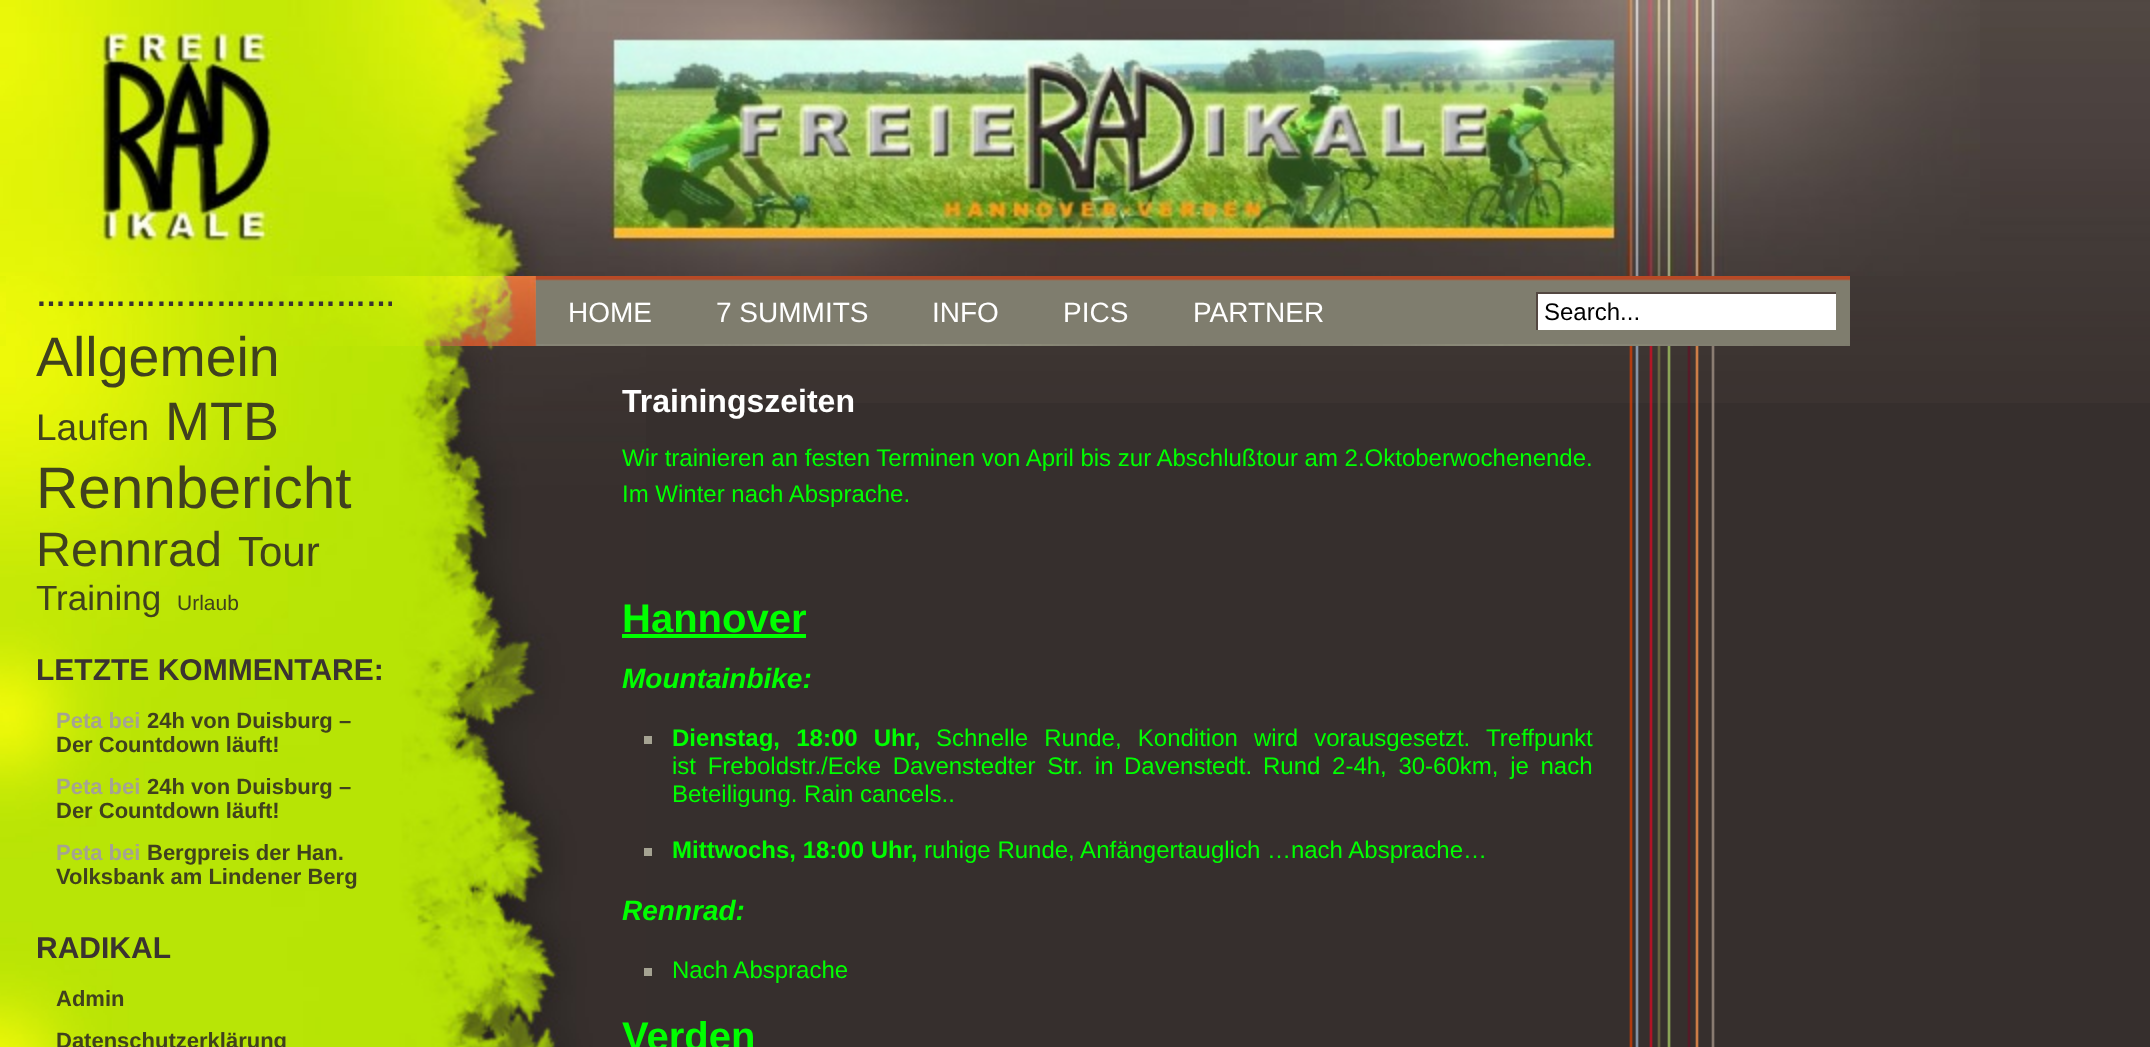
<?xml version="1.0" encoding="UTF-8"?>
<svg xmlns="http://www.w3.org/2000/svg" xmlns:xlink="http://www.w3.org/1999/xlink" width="2150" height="1047">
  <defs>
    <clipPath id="clip1"><rect x="36" y="276" width="356" height="40" /></clipPath>
  </defs>
  <rect width="100%" height="100%" fill="#362f2d" />
  <image x="646" y="0" width="1504" height="403" xlink:href="image1.png" />
  <image x="1629" y="346" width="86" height="701" xlink:href="image2.png" />
  <image x="0" y="0" width="1980" height="276" xlink:href="image3.png" />
  <image x="0" y="276" width="6" height="70" xlink:href="image4.png" />
  <image x="6" y="276" width="1844" height="70" xlink:href="image5.png" />
  <image x="0" y="346" width="646" height="701" xlink:href="image6.png" />
  <rect x="536" y="281" width="1314" height="63" fill="#7f7d6e" />
  <image x="536" y="276" width="1314" height="5" xlink:href="image7.png" />
  <rect x="1538" y="294" width="298" height="36" fill="#ffffff" />
  <rect x="1536" y="292" width="300" height="2" fill="#534741" />
  <rect x="1536" y="292" width="2" height="38" fill="#534741" />
  <rect x="622" y="634" width="184" height="4" fill="#00ff00" />
  <rect x="644" y="736" width="8" height="8" fill="#a5a392" />
  <rect x="644" y="848" width="8" height="8" fill="#a5a392" />
  <rect x="644" y="968" width="8" height="8" fill="#a5a392" />
  <g clip-path="url(#clip1)">
    <text x="36" y="306" style="font-family: Liberation Sans; font-size: 30px; font-weight: bold; fill: #3a3330">………………………………</text>
  </g>
  <text x="36" y="376" style="font-family: Liberation Sans; font-size: 55.5px; fill: #40411e">Allgemein</text>
  <text x="36" y="440" style="font-family: Liberation Sans; font-size: 37px; fill: #40411e">Laufen</text>
  <text x="165" y="440" style="font-family: Liberation Sans; font-size: 54px; fill: #40411e">MTB</text>
  <text x="36" y="508" style="font-family: Liberation Sans; font-size: 58.5px; fill: #40411e">Rennbericht</text>
  <text x="36" y="566" style="font-family: Liberation Sans; font-size: 48.5px; fill: #40411e">Rennrad</text>
  <text x="238" y="566" style="font-family: Liberation Sans; font-size: 42px; fill: #40411e">Tour</text>
  <text x="36" y="610" style="font-family: Liberation Sans; font-size: 35px; fill: #40411e">Training</text>
  <text x="177" y="610" style="font-family: Liberation Sans; font-size: 21px; fill: #40411e">Urlaub</text>
  <text x="36" y="680" style="font-family: Liberation Sans; font-size: 30px; font-weight: bold; fill: #3a3330">LETZTE KOMMENTARE:</text>
  <text x="56" y="728" style="font-family: Liberation Sans; font-size: 22px; font-weight: bold; fill: #a5a392">Peta bei</text>
  <text x="147" y="728" style="font-family: Liberation Sans; font-size: 22px; font-weight: bold; fill: #40411e">24h von Duisburg –</text>
  <text x="56" y="752" style="font-family: Liberation Sans; font-size: 22px; font-weight: bold; fill: #40411e">Der Countdown läuft!</text>
  <text x="56" y="794" style="font-family: Liberation Sans; font-size: 22px; font-weight: bold; fill: #a5a392">Peta bei</text>
  <text x="147" y="794" style="font-family: Liberation Sans; font-size: 22px; font-weight: bold; fill: #40411e">24h von Duisburg –</text>
  <text x="56" y="818" style="font-family: Liberation Sans; font-size: 22px; font-weight: bold; fill: #40411e">Der Countdown läuft!</text>
  <text x="56" y="860" style="font-family: Liberation Sans; font-size: 22px; font-weight: bold; fill: #a5a392">Peta bei</text>
  <text x="147" y="860" style="font-family: Liberation Sans; font-size: 22px; font-weight: bold; fill: #40411e">Bergpreis der Han.</text>
  <text x="56" y="884" style="font-family: Liberation Sans; font-size: 22px; font-weight: bold; fill: #40411e">Volksbank am Lindener Berg</text>
  <text x="36" y="958" style="font-family: Liberation Sans; font-size: 30px; font-weight: bold; fill: #3a3330">RADIKAL</text>
  <text x="56" y="1006" style="font-family: Liberation Sans; font-size: 22px; font-weight: bold; fill: #40411e">Admin</text>
  <text x="56" y="1048" style="font-family: Liberation Sans; font-size: 22px; font-weight: bold; fill: #40411e">Datenschutzerklärung</text>
  <text x="568" y="322" style="font-family: Liberation Sans; font-size: 28px; fill: #ffffff">HOME</text>
  <text x="716" y="322" style="font-family: Liberation Sans; font-size: 28px; fill: #ffffff">7 SUMMITS</text>
  <text x="932" y="322" style="font-family: Liberation Sans; font-size: 28px; fill: #ffffff">INFO</text>
  <text x="1063" y="322" style="font-family: Liberation Sans; font-size: 28px; fill: #ffffff">PICS</text>
  <text x="1193" y="322" style="font-family: Liberation Sans; font-size: 28px; fill: #ffffff">PARTNER</text>
  <text x="1544" y="320" style="font-family: Liberation Sans; font-size: 24px; fill: #000000">Search...</text>
  <text x="622" y="412" style="font-family: Liberation Sans; font-size: 32px; font-weight: bold; fill: #ffffff">Trainingszeiten</text>
  <text x="622" y="466" style="font-family: Liberation Sans; font-size: 24px; fill: #00ff00">Wir trainieren an festen Terminen von April bis zur Abschlußtour am 2.Oktoberwochenende.</text>
  <text x="622" y="502" style="font-family: Liberation Sans; font-size: 24px; fill: #00ff00">Im Winter nach Absprache.</text>
  <text x="622" y="632" style="font-family: Liberation Sans; font-size: 40px; font-weight: bold; fill: #00ff00">Hannover</text>
  <text x="622" y="688" style="font-family: Liberation Sans; font-size: 28px; font-weight: bold; font-style: italic; fill: #00ff00">Mountainbike:</text>
  <text x="672" y="746" word-spacing="9.5" style="font-family: Liberation Sans; font-size: 24px; font-weight: bold; fill: #00ff00">Dienstag, 18:00 Uhr,</text>
  <text x="936" y="746" word-spacing="9.5" style="font-family: Liberation Sans; font-size: 24px; fill: #00ff00">Schnelle Runde, Kondition wird vorausgesetzt. Treffpunkt</text>
  <text x="672" y="774" word-spacing="5" style="font-family: Liberation Sans; font-size: 24px; fill: #00ff00">ist Freboldstr./Ecke Davenstedter Str. in</text>
  <text x="1124" y="774" style="font-family: Liberation Sans; font-size: 24px; fill: #00ff00">Davenstedt.</text>
  <text x="1263" y="774" word-spacing="5" style="font-family: Liberation Sans; font-size: 24px; fill: #00ff00">Rund 2-4h, 30-60km, je nach</text>
  <text x="672" y="802" style="font-family: Liberation Sans; font-size: 24px; fill: #00ff00">Beteiligung. Rain cancels..</text>
  <text x="672" y="858" style="font-family: Liberation Sans; font-size: 24px; font-weight: bold; fill: #00ff00">Mittwochs, 18:00 Uhr,</text>
  <text x="924" y="858" style="font-family: Liberation Sans; font-size: 24px; fill: #00ff00">ruhige Runde, Anfängertauglich …nach Absprache…</text>
  <text x="622" y="920" style="font-family: Liberation Sans; font-size: 28px; font-weight: bold; font-style: italic; fill: #00ff00">Rennrad:</text>
  <text x="672" y="978" style="font-family: Liberation Sans; font-size: 24px; fill: #00ff00">Nach Absprache</text>
  <text x="622" y="1050" style="font-family: Liberation Sans; font-size: 40px; font-weight: bold; fill: #00ff00">Verden</text>
</svg>
